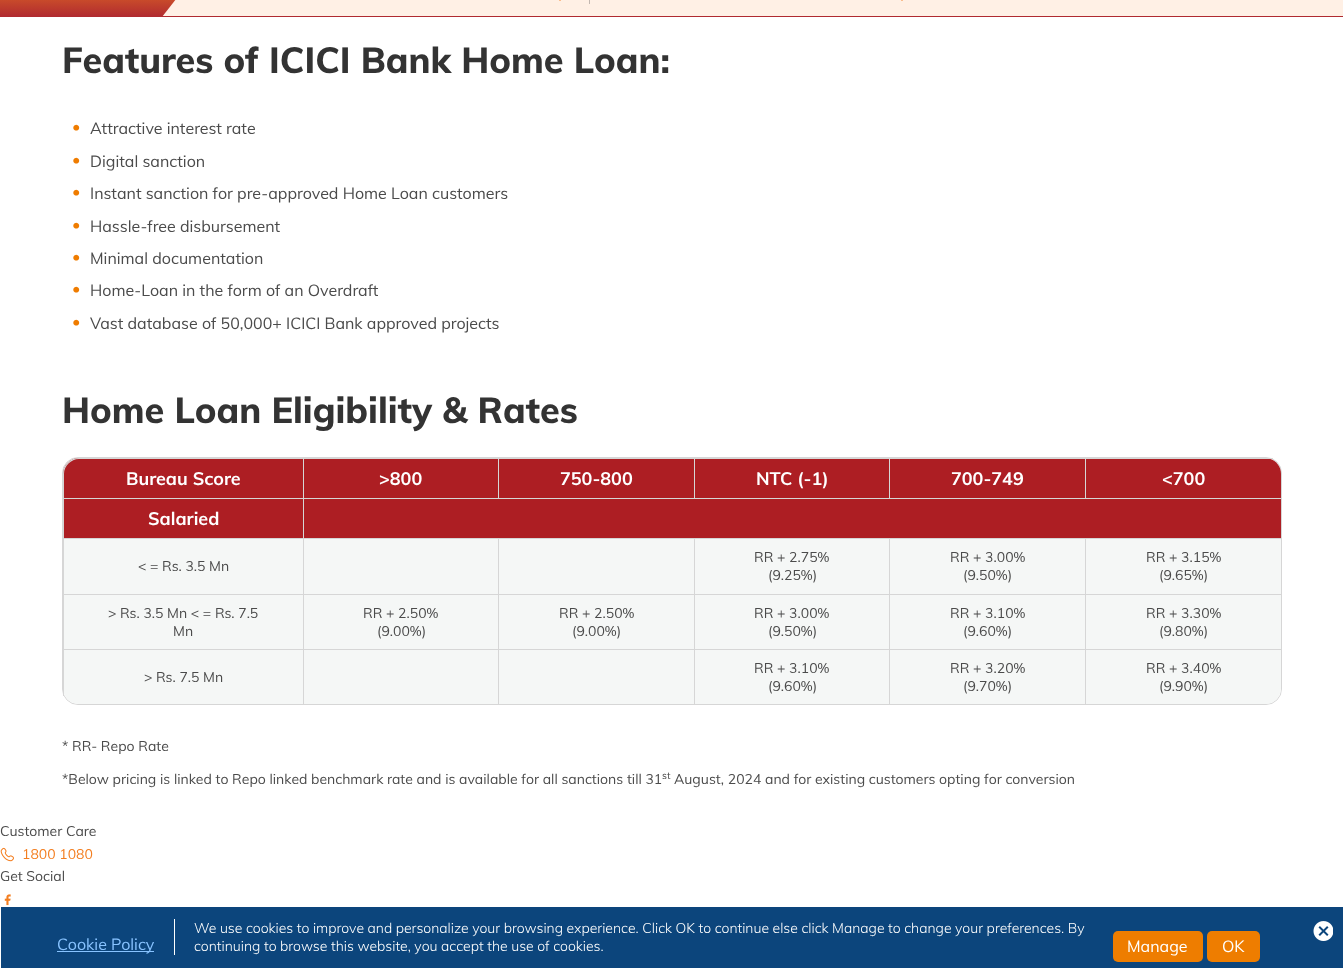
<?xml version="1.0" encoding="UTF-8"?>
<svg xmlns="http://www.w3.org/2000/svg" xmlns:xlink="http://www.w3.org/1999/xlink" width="1343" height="968">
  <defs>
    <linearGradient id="g1" gradientUnits="userSpaceOnUse" x1="90" y1="-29" x2="90" y2="17"><stop offset="0" stop-color="#f18121" /><stop offset="1" stop-color="#b02a30" /></linearGradient>
  </defs>
  <rect width="100%" height="100%" fill="#ffffff" />
  <rect x="162" width="1181" height="16" fill="#fff0e5" />
  <path d="M 0 -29 v 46 h 162 l 18 -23 l -18 -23 z" fill="url(#g1)" />
  <rect x="559" width="2" height="1" fill="#fabd8e" />
  <rect x="589" width="1" height="4" fill="#c2b7b0" />
  <rect x="901" width="2" height="1" fill="#fabd8e" />
  <rect x="162" y="16" width="1181" height="1" fill="#b02a30" />
  <rect x="62.5" y="457.5" width="1219" height="247" rx="15.5" fill="none" stroke="#d6d6d6" />
  <path d="M 79 458 h 224 v 40 h -240 v -24 c 0 -9 7 -16 16 -16 z" fill="#ad1e23" />
  <path d="M 79 458 h 224 v 40 h -240 v -24 c 0 -9 7 -16 16 -16 z m 0 1 h 224 v 39 h -239 v -24 c 0 -8 7 -15 15 -15 z" fill="#d6d6d6" fill-rule="evenodd" />
  <rect x="304" y="459" width="194" height="39" fill="#ad1e23" />
  <rect x="303" y="458" width="782" height="1" fill="#d6d6d6" />
  <rect x="303" y="458" width="1" height="40" fill="#d6d6d6" />
  <rect x="499" y="459" width="195" height="39" fill="#ad1e23" />
  <rect x="498" y="458" width="1" height="40" fill="#d6d6d6" />
  <rect x="695" y="459" width="194" height="39" fill="#ad1e23" />
  <rect x="694" y="458" width="1" height="40" fill="#d6d6d6" />
  <rect x="890" y="459" width="195" height="39" fill="#ad1e23" />
  <rect x="889" y="458" width="1" height="40" fill="#d6d6d6" />
  <path d="M 1085 458 h 180 c 9 0 16 7 16 16 v 24 h -196 z" fill="#ad1e23" />
  <rect x="1085" y="458" width="188" height="1" fill="#d6d6d6" />
  <rect x="1085" y="458" width="1" height="40" fill="#d6d6d6" />
  <rect x="64" y="499" width="239" height="39" fill="#ad1e23" />
  <rect x="63" y="498" width="1218" height="1" fill="#d6d6d6" />
  <rect x="63" y="498" width="1" height="40" fill="#d6d6d6" />
  <rect x="304" y="499" width="977" height="39" fill="#ad1e23" />
  <rect x="303" y="498" width="1" height="40" fill="#d6d6d6" />
  <rect x="64" y="539" width="239" height="55" fill="#f5f7f6" />
  <rect x="63" y="538" width="1218" height="1" fill="#d6d6d6" />
  <rect x="63" y="538" width="1" height="56" fill="#d6d6d6" />
  <rect x="304" y="539" width="194" height="55" fill="#f5f7f6" />
  <rect x="303" y="538" width="1" height="56" fill="#d6d6d6" />
  <rect x="499" y="539" width="195" height="55" fill="#f5f7f6" />
  <rect x="498" y="538" width="1" height="56" fill="#d6d6d6" />
  <rect x="695" y="539" width="194" height="55" fill="#f5f7f6" />
  <rect x="694" y="538" width="1" height="56" fill="#d6d6d6" />
  <rect x="890" y="539" width="195" height="55" fill="#f5f7f6" />
  <rect x="889" y="538" width="1" height="56" fill="#d6d6d6" />
  <rect x="1086" y="539" width="195" height="55" fill="#f5f7f6" />
  <rect x="1085" y="538" width="1" height="56" fill="#d6d6d6" />
  <rect x="64" y="595" width="239" height="54" fill="#f5f7f6" />
  <rect x="63" y="594" width="1218" height="1" fill="#d6d6d6" />
  <rect x="63" y="594" width="1" height="55" fill="#d6d6d6" />
  <rect x="304" y="595" width="194" height="54" fill="#f5f7f6" />
  <rect x="303" y="594" width="1" height="55" fill="#d6d6d6" />
  <rect x="499" y="595" width="195" height="54" fill="#f5f7f6" />
  <rect x="498" y="594" width="1" height="55" fill="#d6d6d6" />
  <rect x="695" y="595" width="194" height="54" fill="#f5f7f6" />
  <rect x="694" y="594" width="1" height="55" fill="#d6d6d6" />
  <rect x="890" y="595" width="195" height="54" fill="#f5f7f6" />
  <rect x="889" y="594" width="1" height="55" fill="#d6d6d6" />
  <rect x="1086" y="595" width="195" height="54" fill="#f5f7f6" />
  <rect x="1085" y="594" width="1" height="55" fill="#d6d6d6" />
  <path d="M 63 649 h 240 v 55 h -224 c -9 0 -16 -7 -16 -16 z" fill="#f5f7f6" />
  <rect x="63" y="649" width="1022" height="1" fill="#d6d6d6" />
  <rect x="63" y="649" width="1" height="47" fill="#d6d6d6" />
  <rect x="304" y="650" width="194" height="54" fill="#f5f7f6" />
  <rect x="303" y="649" width="1" height="55" fill="#d6d6d6" />
  <rect x="499" y="650" width="195" height="54" fill="#f5f7f6" />
  <rect x="498" y="649" width="1" height="55" fill="#d6d6d6" />
  <rect x="695" y="650" width="194" height="54" fill="#f5f7f6" />
  <rect x="694" y="649" width="1" height="55" fill="#d6d6d6" />
  <rect x="890" y="650" width="195" height="54" fill="#f5f7f6" />
  <rect x="889" y="649" width="1" height="55" fill="#d6d6d6" />
  <path d="M 1085 649 h 196 v 39 c 0 9 -7 16 -16 16 h -180 z" fill="#f5f7f6" />
  <rect x="1085" y="649" width="196" height="1" fill="#d6d6d6" />
  <rect x="1085" y="649" width="1" height="55" fill="#d6d6d6" />
  <image x="0" y="847" width="14" height="15" xlink:href="image1.png" />
  <image x="4" y="894" width="7" height="12" xlink:href="image2.png" />
  <rect x="1" y="907" width="1342" height="61" fill="#0c457c" />
  <rect x="57" y="951" width="97" height="1" fill="#88c3ff" />
  <rect x="174" y="919" width="1" height="36" fill="#ffffff" />
  <rect x="1113" y="931" width="90" height="31" rx="5" fill="#ee7d00" />
  <rect x="1207" y="931" width="53" height="31" rx="5" fill="#ee7d00" />
  <image x="1313" y="921" width="20" height="20" xlink:href="image3.png" />
  <text x="62" y="73" style="font-family: Muli; font-size: 36px; font-weight: 800; fill: #333333">Features of ICICI Bank Home Loan:</text>
  <text x="72" y="132" style="font-family: Muli; font-size: 16px; fill: #ef7c00">•</text>
  <text x="90" y="134" style="font-family: Muli; font-size: 16px; fill: #4b4b4b">Attractive interest rate</text>
  <text x="72" y="165" style="font-family: Muli; font-size: 16px; fill: #ef7c00">•</text>
  <text x="90" y="167" style="font-family: Muli; font-size: 16px; fill: #4b4b4b">Digital sanction</text>
  <text x="72" y="197" style="font-family: Muli; font-size: 16px; fill: #ef7c00">•</text>
  <text x="90" y="199" style="font-family: Muli; font-size: 16px; fill: #4b4b4b">Instant sanction for pre-approved Home Loan customers</text>
  <text x="72" y="230" style="font-family: Muli; font-size: 16px; fill: #ef7c00">•</text>
  <text x="90" y="232" style="font-family: Muli; font-size: 16px; fill: #4b4b4b">Hassle-free disbursement</text>
  <text x="72" y="262" style="font-family: Muli; font-size: 16px; fill: #ef7c00">•</text>
  <text x="90" y="264" style="font-family: Muli; font-size: 16px; fill: #4b4b4b">Minimal documentation</text>
  <text x="72" y="294" style="font-family: Muli; font-size: 16px; fill: #ef7c00">•</text>
  <text x="90" y="296" style="font-family: Muli; font-size: 16px; fill: #4b4b4b">Home-Loan in the form of an Overdraft</text>
  <text x="72" y="327" style="font-family: Muli; font-size: 16px; fill: #ef7c00">•</text>
  <text x="90" y="329" style="font-family: Muli; font-size: 16px; fill: #4b4b4b">Vast database of 50,000+ ICICI Bank approved projects</text>
  <text x="62" y="423" style="font-family: Muli; font-size: 36px; font-weight: 800; fill: #333333">Home Loan Eligibility &amp; Rates</text>
  <text x="126" y="485" style="font-family: Muli; font-size: 18px; font-weight: bold; fill: #ffffff">Bureau Score</text>
  <text x="379" y="485" style="font-family: Muli; font-size: 18px; font-weight: bold; fill: #ffffff">&gt;800</text>
  <text x="560" y="485" style="font-family: Muli; font-size: 18px; font-weight: bold; fill: #ffffff">750-800</text>
  <text x="756" y="485" style="font-family: Muli; font-size: 18px; font-weight: bold; fill: #ffffff">NTC (-1)</text>
  <text x="951" y="485" style="font-family: Muli; font-size: 18px; font-weight: bold; fill: #ffffff">700-749</text>
  <text x="1162" y="485" style="font-family: Muli; font-size: 18px; font-weight: bold; fill: #ffffff">&lt;700</text>
  <text x="148" y="525" style="font-family: Muli; font-size: 18px; font-weight: bold; fill: #ffffff">Salaried</text>
  <text x="138" y="571" style="font-family: Muli; font-size: 14px; fill: #4b4b4b">&lt; = Rs. 3.5 Mn</text>
  <text x="754" y="562" style="font-family: Muli; font-size: 14px; fill: #4b4b4b">RR + 2.75%</text>
  <text x="768" y="580" style="font-family: Muli; font-size: 14px; fill: #4b4b4b">(9.25%)</text>
  <text x="950" y="562" style="font-family: Muli; font-size: 14px; fill: #4b4b4b">RR + 3.00%</text>
  <text x="963" y="580" style="font-family: Muli; font-size: 14px; fill: #4b4b4b">(9.50%)</text>
  <text x="1146" y="562" style="font-family: Muli; font-size: 14px; fill: #4b4b4b">RR + 3.15%</text>
  <text x="1159" y="580" style="font-family: Muli; font-size: 14px; fill: #4b4b4b">(9.65%)</text>
  <text x="108" y="618" style="font-family: Muli; font-size: 14px; fill: #4b4b4b">&gt; Rs. 3.5 Mn &lt; = Rs. 7.5</text>
  <text x="173" y="636" style="font-family: Muli; font-size: 14px; fill: #4b4b4b">Mn</text>
  <text x="363" y="618" style="font-family: Muli; font-size: 14px; fill: #4b4b4b">RR + 2.50%</text>
  <text x="377" y="636" style="font-family: Muli; font-size: 14px; fill: #4b4b4b">(9.00%)</text>
  <text x="559" y="618" style="font-family: Muli; font-size: 14px; fill: #4b4b4b">RR + 2.50%</text>
  <text x="572" y="636" style="font-family: Muli; font-size: 14px; fill: #4b4b4b">(9.00%)</text>
  <text x="754" y="618" style="font-family: Muli; font-size: 14px; fill: #4b4b4b">RR + 3.00%</text>
  <text x="768" y="636" style="font-family: Muli; font-size: 14px; fill: #4b4b4b">(9.50%)</text>
  <text x="950" y="618" style="font-family: Muli; font-size: 14px; fill: #4b4b4b">RR + 3.10%</text>
  <text x="963" y="636" style="font-family: Muli; font-size: 14px; fill: #4b4b4b">(9.60%)</text>
  <text x="1146" y="618" style="font-family: Muli; font-size: 14px; fill: #4b4b4b">RR + 3.30%</text>
  <text x="1159" y="636" style="font-family: Muli; font-size: 14px; fill: #4b4b4b">(9.80%)</text>
  <text x="144" y="682" style="font-family: Muli; font-size: 14px; fill: #4b4b4b">&gt; Rs. 7.5 Mn</text>
  <text x="754" y="673" style="font-family: Muli; font-size: 14px; fill: #4b4b4b">RR + 3.10%</text>
  <text x="768" y="691" style="font-family: Muli; font-size: 14px; fill: #4b4b4b">(9.60%)</text>
  <text x="950" y="673" style="font-family: Muli; font-size: 14px; fill: #4b4b4b">RR + 3.20%</text>
  <text x="963" y="691" style="font-family: Muli; font-size: 14px; fill: #4b4b4b">(9.70%)</text>
  <text x="1146" y="673" style="font-family: Muli; font-size: 14px; fill: #4b4b4b">RR + 3.40%</text>
  <text x="1159" y="691" style="font-family: Muli; font-size: 14px; fill: #4b4b4b">(9.90%)</text>
  <text x="62" y="751" style="font-family: Muli; font-size: 14px; fill: #4b4b4b">* RR- Repo Rate</text>
  <text x="62" y="784" style="font-family: Muli; font-size: 14px; fill: #4b4b4b">*Below pricing is linked to Repo linked benchmark rate and is available for all sanctions till 31</text>
  <text x="662" y="779" style="font-family: Muli; font-size: 10px; fill: #4b4b4b">st</text>
  <text x="674" y="784" style="font-family: Muli; font-size: 14px; fill: #4b4b4b">August, 2024 and for existing customers opting for conversion</text>
  <text x="0" y="836" style="font-family: Muli; font-size: 14px; fill: #4b4b4b">Customer Care</text>
  <text x="22" y="859" style="font-family: Muli; font-size: 14px; fill: #f37e20">1800 1080</text>
  <text x="0" y="881" style="font-family: Muli; font-size: 14px; fill: #4b4b4b">Get Social</text>
  <text x="57" y="950" style="font-family: Muli; font-size: 16px; fill: #88c3ff">Cookie Policy</text>
  <text x="194" y="933" style="font-family: Muli; font-size: 14px; font-weight: 300; fill: #ffffff">We use cookies to improve and personalize your browsing experience. Click OK to continue else click Manage to change your preferences. By</text>
  <text x="194" y="951" style="font-family: Muli; font-size: 14px; font-weight: 300; fill: #ffffff">continuing to browse this website, you accept the use of cookies.</text>
  <text x="1127" y="952" style="font-family: Muli; font-size: 16px; fill: #ffffff">Manage</text>
  <text x="1222" y="952" style="font-family: Muli; font-size: 16px; fill: #ffffff">OK</text>
</svg>
